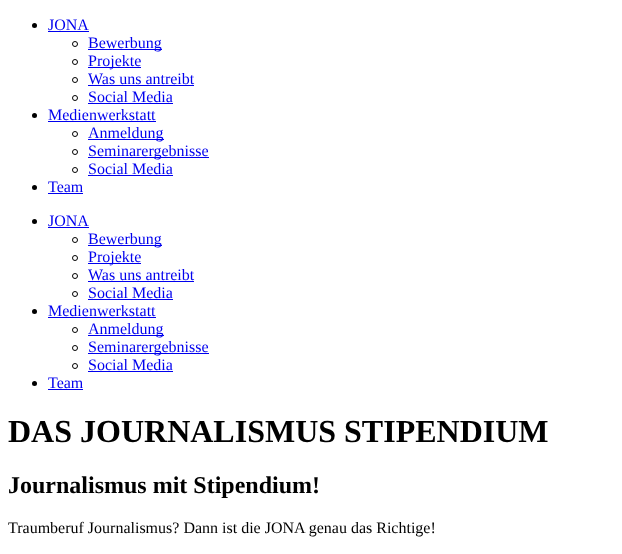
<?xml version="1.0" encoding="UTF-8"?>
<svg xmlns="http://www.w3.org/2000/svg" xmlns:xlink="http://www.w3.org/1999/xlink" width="622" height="554">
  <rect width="100%" height="100%" fill="#ffffff" />
  <circle cx="34.5" cy="25.5" r="2.5" fill="#000000" />
  <rect x="48" y="31" width="41" height="1" fill="#0000ee" />
  <circle cx="75" cy="44" r="2.5" fill="none" stroke="#000000" />
  <rect x="88" y="49" width="74" height="1" fill="#0000ee" />
  <circle cx="75" cy="62" r="2.5" fill="none" stroke="#000000" />
  <rect x="88" y="67" width="53" height="1" fill="#0000ee" />
  <circle cx="75" cy="80" r="2.5" fill="none" stroke="#000000" />
  <rect x="88" y="85" width="106" height="1" fill="#0000ee" />
  <circle cx="75" cy="98" r="2.5" fill="none" stroke="#000000" />
  <rect x="88" y="103" width="85" height="1" fill="#0000ee" />
  <circle cx="34.5" cy="115.5" r="2.5" fill="#000000" />
  <rect x="48" y="121" width="108" height="1" fill="#0000ee" />
  <circle cx="75" cy="134" r="2.5" fill="none" stroke="#000000" />
  <rect x="88" y="139" width="76" height="1" fill="#0000ee" />
  <circle cx="75" cy="152" r="2.5" fill="none" stroke="#000000" />
  <rect x="88" y="157" width="121" height="1" fill="#0000ee" />
  <circle cx="75" cy="170" r="2.5" fill="none" stroke="#000000" />
  <rect x="88" y="175" width="85" height="1" fill="#0000ee" />
  <circle cx="34.5" cy="187.5" r="2.5" fill="#000000" />
  <rect x="48" y="193" width="35" height="1" fill="#0000ee" />
  <circle cx="34.5" cy="221.5" r="2.5" fill="#000000" />
  <rect x="48" y="227" width="41" height="1" fill="#0000ee" />
  <circle cx="75" cy="240" r="2.5" fill="none" stroke="#000000" />
  <rect x="88" y="245" width="74" height="1" fill="#0000ee" />
  <circle cx="75" cy="258" r="2.5" fill="none" stroke="#000000" />
  <rect x="88" y="263" width="53" height="1" fill="#0000ee" />
  <circle cx="75" cy="276" r="2.5" fill="none" stroke="#000000" />
  <rect x="88" y="281" width="106" height="1" fill="#0000ee" />
  <circle cx="75" cy="294" r="2.5" fill="none" stroke="#000000" />
  <rect x="88" y="299" width="85" height="1" fill="#0000ee" />
  <circle cx="34.5" cy="311.5" r="2.5" fill="#000000" />
  <rect x="48" y="317" width="108" height="1" fill="#0000ee" />
  <circle cx="75" cy="330" r="2.5" fill="none" stroke="#000000" />
  <rect x="88" y="335" width="76" height="1" fill="#0000ee" />
  <circle cx="75" cy="348" r="2.5" fill="none" stroke="#000000" />
  <rect x="88" y="353" width="121" height="1" fill="#0000ee" />
  <circle cx="75" cy="366" r="2.5" fill="none" stroke="#000000" />
  <rect x="88" y="371" width="85" height="1" fill="#0000ee" />
  <circle cx="34.5" cy="383.5" r="2.5" fill="#000000" />
  <rect x="48" y="389" width="35" height="1" fill="#0000ee" />
  <text x="48" y="30" style="font-family: Liberation Serif; font-size: 16px; fill: #0000ee">JONA</text>
  <text x="88" y="48" style="font-family: Liberation Serif; font-size: 16px; fill: #0000ee">Bewerbung</text>
  <text x="88" y="66" style="font-family: Liberation Serif; font-size: 16px; fill: #0000ee">Projekte</text>
  <text x="88" y="84" style="font-family: Liberation Serif; font-size: 16px; fill: #0000ee">Was uns antreibt</text>
  <text x="88" y="102" style="font-family: Liberation Serif; font-size: 16px; fill: #0000ee">Social Media</text>
  <text x="48" y="120" style="font-family: Liberation Serif; font-size: 16px; fill: #0000ee">Medienwerkstatt</text>
  <text x="88" y="138" style="font-family: Liberation Serif; font-size: 16px; fill: #0000ee">Anmeldung</text>
  <text x="88" y="156" style="font-family: Liberation Serif; font-size: 16px; fill: #0000ee">Seminarergebnisse</text>
  <text x="88" y="174" style="font-family: Liberation Serif; font-size: 16px; fill: #0000ee">Social Media</text>
  <text x="48" y="192" style="font-family: Liberation Serif; font-size: 16px; fill: #0000ee">Team</text>
  <text x="48" y="226" style="font-family: Liberation Serif; font-size: 16px; fill: #0000ee">JONA</text>
  <text x="88" y="244" style="font-family: Liberation Serif; font-size: 16px; fill: #0000ee">Bewerbung</text>
  <text x="88" y="262" style="font-family: Liberation Serif; font-size: 16px; fill: #0000ee">Projekte</text>
  <text x="88" y="280" style="font-family: Liberation Serif; font-size: 16px; fill: #0000ee">Was uns antreibt</text>
  <text x="88" y="298" style="font-family: Liberation Serif; font-size: 16px; fill: #0000ee">Social Media</text>
  <text x="48" y="316" style="font-family: Liberation Serif; font-size: 16px; fill: #0000ee">Medienwerkstatt</text>
  <text x="88" y="334" style="font-family: Liberation Serif; font-size: 16px; fill: #0000ee">Anmeldung</text>
  <text x="88" y="352" style="font-family: Liberation Serif; font-size: 16px; fill: #0000ee">Seminarergebnisse</text>
  <text x="88" y="370" style="font-family: Liberation Serif; font-size: 16px; fill: #0000ee">Social Media</text>
  <text x="48" y="388" style="font-family: Liberation Serif; font-size: 16px; fill: #0000ee">Team</text>
  <text x="8" y="442" style="font-family: Liberation Serif; font-size: 32px; font-weight: bold; fill: #000000">DAS JOURNALISMUS STIPENDIUM</text>
  <text x="8" y="493" style="font-family: Liberation Serif; font-size: 24px; font-weight: bold; fill: #000000">Journalismus mit Stipendium!</text>
  <text x="8" y="533" style="font-family: Liberation Serif; font-size: 16px; fill: #000000">Traumberuf Journalismus? Dann ist die JONA genau das Richtige!</text>
</svg>
